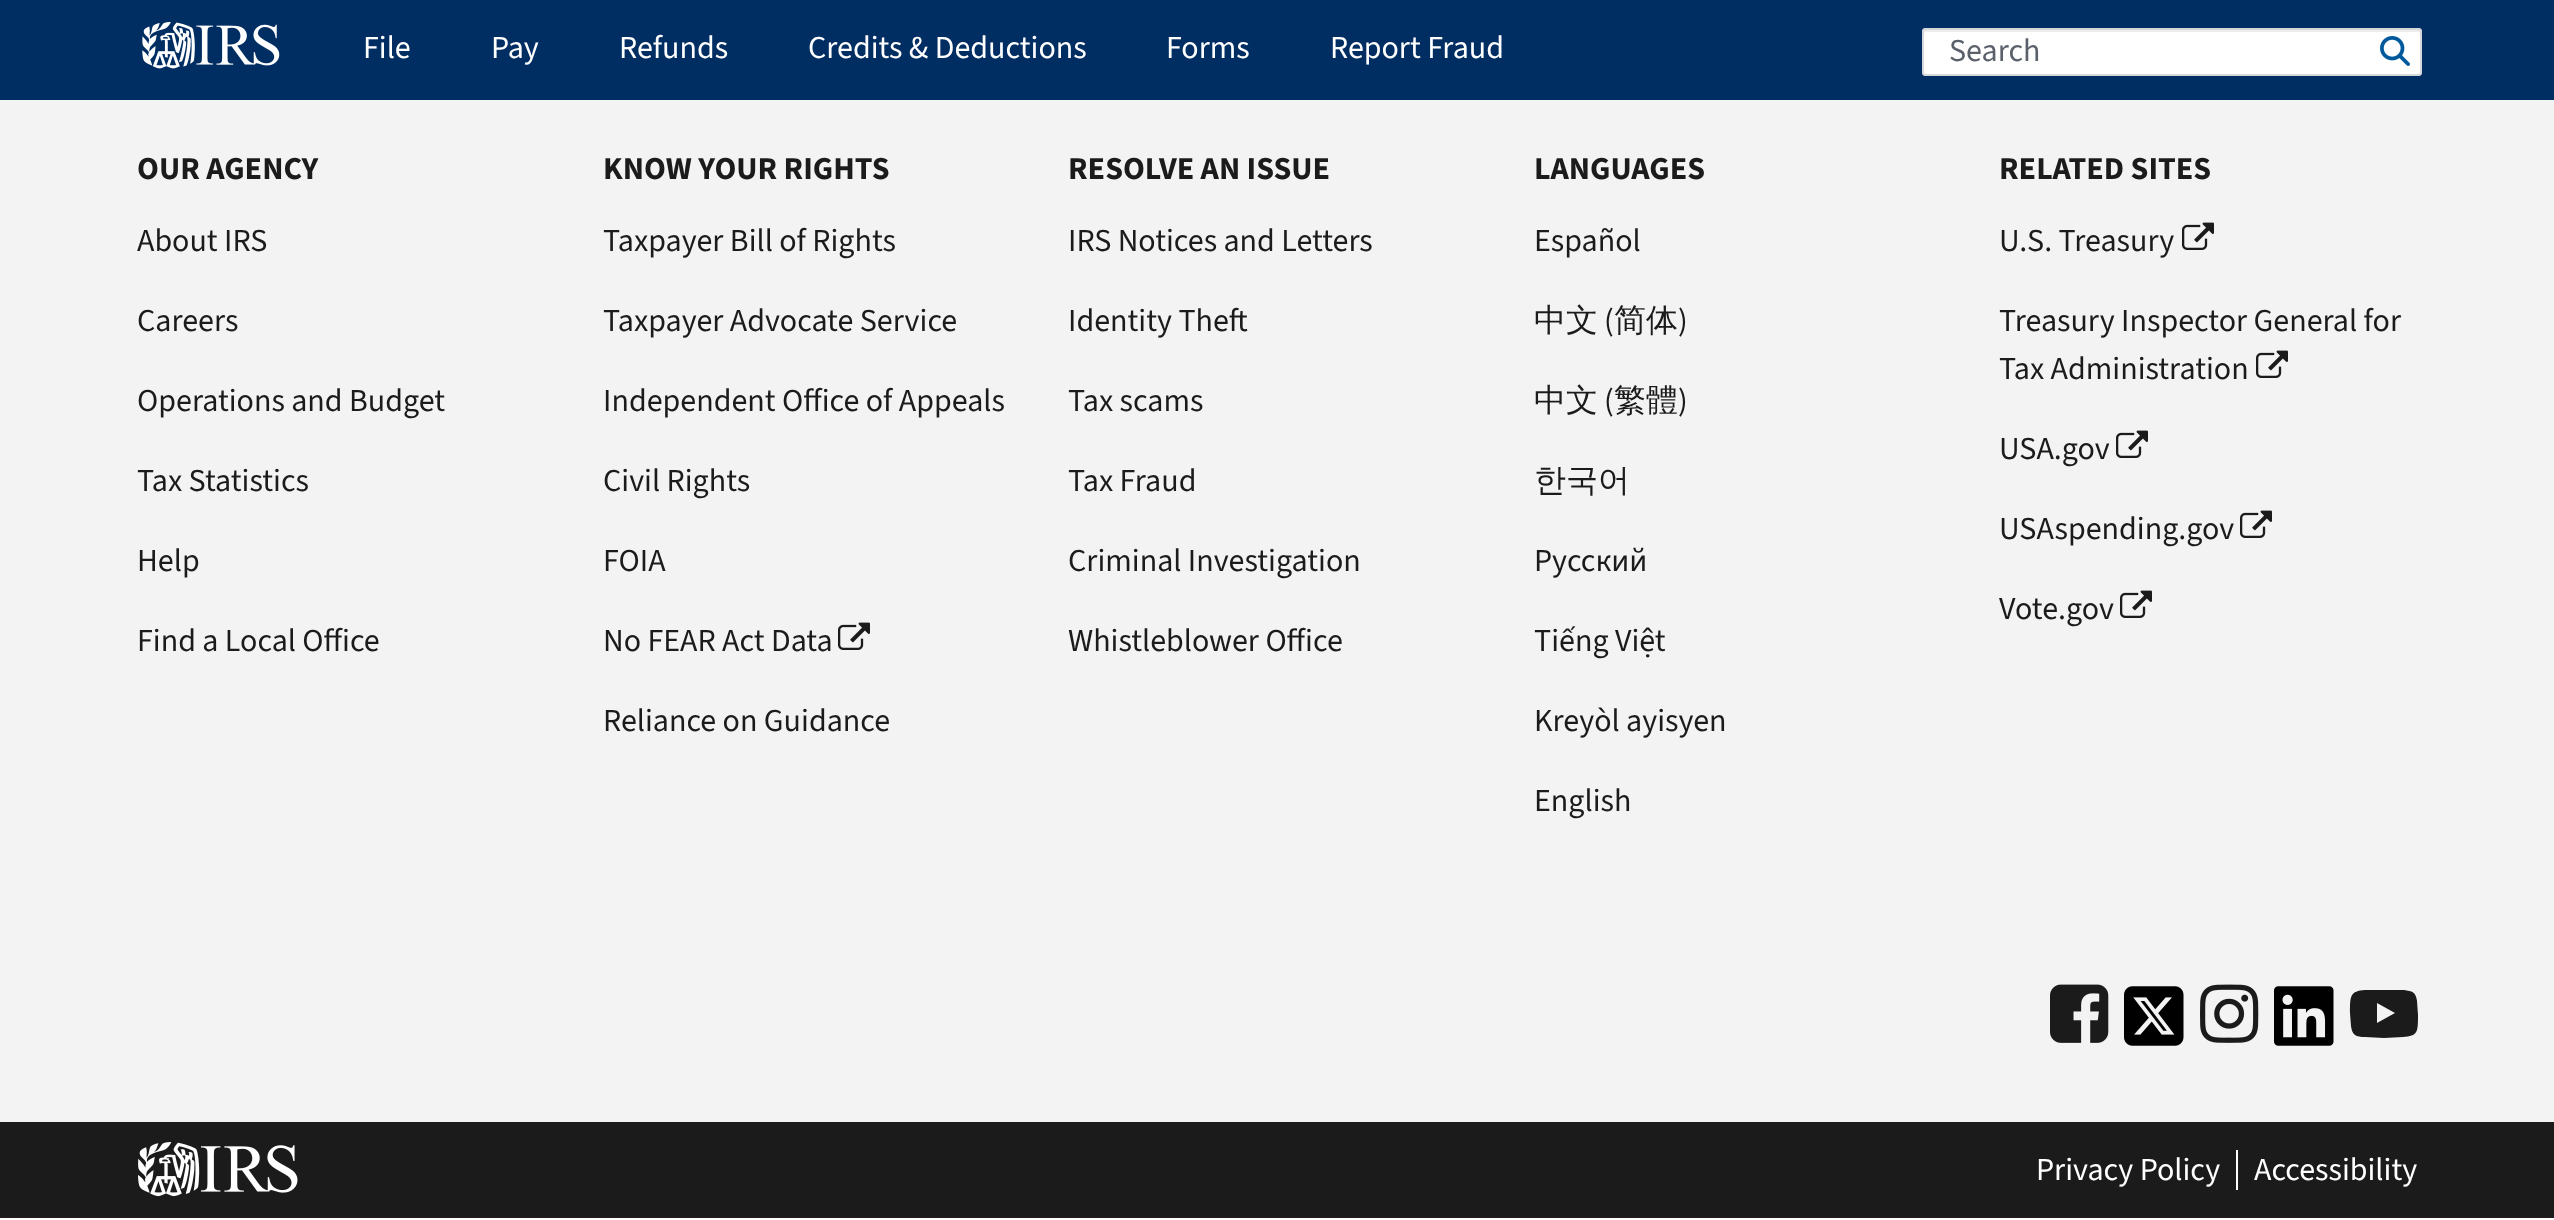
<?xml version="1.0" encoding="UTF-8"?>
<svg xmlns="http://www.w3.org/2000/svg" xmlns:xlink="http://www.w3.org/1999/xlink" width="2554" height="1220">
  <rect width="100%" height="100%" fill="#ffffff" />
  <rect width="2554" height="100" fill="#002d62" />
  <image x="142" y="22" width="138" height="47" xlink:href="image1.png" />
  <rect x="1922" y="28" width="500" height="48" rx="4" fill="#ffffff" />
  <path d="M 1926 32 h 492 c 1 0 2 1 2 2 c 0 -2 0 -4 -2 -4 h -493 l -1 1 v 3 c 0 -1 1 -2 2 -2 z" fill="#ececec" />
  <rect x="1923" y="29" width="498" height="46" rx="3" fill="none" stroke="#d6d7d9" stroke-width="2" />
  <image x="2380" y="36" width="30" height="30" xlink:href="image2.png" />
  <rect y="100" width="2554" height="1022" fill="#f3f3f3" />
  <image x="838" y="622" width="32" height="28" xlink:href="image3.png" />
  <image x="2182" y="222" width="32" height="28" xlink:href="image3.png" />
  <image x="2256" y="350" width="32" height="28" xlink:href="image3.png" />
  <image x="2116" y="430" width="32" height="28" xlink:href="image3.png" />
  <image x="2240" y="510" width="32" height="28" xlink:href="image3.png" />
  <image x="2120" y="590" width="32" height="28" xlink:href="image3.png" />
  <image x="2050" y="984" width="59" height="59" xlink:href="image4.png" />
  <image x="2124" y="986" width="60" height="60" xlink:href="image5.png" />
  <image x="2200" y="984" width="59" height="59" xlink:href="image6.png" />
  <image x="2274" y="986" width="60" height="60" xlink:href="image7.png" />
  <path d="M 2377 1023 l 18 -10 l -18 -10 z m 7 -33 h 20 c 8 1 12 2 13 11 l 1 14 c 0 17 0 21 -15 22 l -19 1 l -19 -1 c -9 0 -13 -2 -14 -11 l -1 -13 c 0 -17 0 -22 15 -23 z" fill="#1b1b1b" />
  <rect y="1122" width="2554" height="96" fill="#1b1b1b" />
  <image x="138" y="1142" width="160" height="55" xlink:href="image8.png" />
  <rect x="2236" y="1150" width="2" height="40" fill="#ffffff" />
  <text x="363" y="58" style="font-family: 'Source Sans 3'; font-size: 32px; fill: #ffffff">File</text>
  <text x="491" y="58" style="font-family: 'Source Sans 3'; font-size: 32px; fill: #ffffff">Pay</text>
  <text x="619" y="58" style="font-family: 'Source Sans 3'; font-size: 32px; fill: #ffffff">Refunds</text>
  <text x="808" y="58" style="font-family: 'Source Sans 3'; font-size: 32px; fill: #ffffff">Credits &amp; Deductions</text>
  <text x="1166" y="58" style="font-family: 'Source Sans 3'; font-size: 32px; fill: #ffffff">Forms</text>
  <text x="1330" y="58" style="font-family: 'Source Sans 3'; font-size: 32px; fill: #ffffff">Report Fraud</text>
  <text x="1949" y="61" style="font-family: 'Source Sans 3'; font-size: 32px; fill: #5b616b">Search</text>
  <text x="137" y="179" style="font-family: 'Source Sans 3'; font-size: 32px; font-weight: bold; fill: #1b1b1b">OUR AGENCY</text>
  <text x="137" y="251" style="font-family: 'Source Sans 3'; font-size: 32px; fill: #1b1b1b">About IRS</text>
  <text x="137" y="331" style="font-family: 'Source Sans 3'; font-size: 32px; fill: #1b1b1b">Careers</text>
  <text x="137" y="411" style="font-family: 'Source Sans 3'; font-size: 32px; fill: #1b1b1b">Operations and Budget</text>
  <text x="137" y="491" style="font-family: 'Source Sans 3'; font-size: 32px; fill: #1b1b1b">Tax Statistics</text>
  <text x="137" y="571" style="font-family: 'Source Sans 3'; font-size: 32px; fill: #1b1b1b">Help</text>
  <text x="137" y="651" style="font-family: 'Source Sans 3'; font-size: 32px; fill: #1b1b1b">Find a Local Office</text>
  <text x="603" y="179" style="font-family: 'Source Sans 3'; font-size: 32px; font-weight: bold; fill: #1b1b1b">KNOW YOUR RIGHTS</text>
  <text x="603" y="251" style="font-family: 'Source Sans 3'; font-size: 32px; fill: #1b1b1b">Taxpayer Bill of Rights</text>
  <text x="603" y="331" style="font-family: 'Source Sans 3'; font-size: 32px; fill: #1b1b1b">Taxpayer Advocate Service</text>
  <text x="603" y="411" style="font-family: 'Source Sans 3'; font-size: 32px; fill: #1b1b1b">Independent Office of Appeals</text>
  <text x="603" y="491" style="font-family: 'Source Sans 3'; font-size: 32px; fill: #1b1b1b">Civil Rights</text>
  <text x="603" y="571" style="font-family: 'Source Sans 3'; font-size: 32px; fill: #1b1b1b">FOIA</text>
  <text x="603" y="651" style="font-family: 'Source Sans 3'; font-size: 32px; fill: #1b1b1b">No FEAR Act Data</text>
  <text x="603" y="731" style="font-family: 'Source Sans 3'; font-size: 32px; fill: #1b1b1b">Reliance on Guidance</text>
  <text x="1068" y="179" style="font-family: 'Source Sans 3'; font-size: 32px; font-weight: bold; fill: #1b1b1b">RESOLVE AN ISSUE</text>
  <text x="1068" y="251" style="font-family: 'Source Sans 3'; font-size: 32px; fill: #1b1b1b">IRS Notices and Letters</text>
  <text x="1068" y="331" style="font-family: 'Source Sans 3'; font-size: 32px; fill: #1b1b1b">Identity Theft</text>
  <text x="1068" y="411" style="font-family: 'Source Sans 3'; font-size: 32px; fill: #1b1b1b">Tax scams</text>
  <text x="1068" y="491" style="font-family: 'Source Sans 3'; font-size: 32px; fill: #1b1b1b">Tax Fraud</text>
  <text x="1068" y="571" style="font-family: 'Source Sans 3'; font-size: 32px; fill: #1b1b1b">Criminal Investigation</text>
  <text x="1068" y="651" style="font-family: 'Source Sans 3'; font-size: 32px; fill: #1b1b1b">Whistleblower Office</text>
  <text x="1534" y="179" style="font-family: 'Source Sans 3'; font-size: 32px; font-weight: bold; fill: #1b1b1b">LANGUAGES</text>
  <text x="1534" y="251" style="font-family: 'Source Sans 3'; font-size: 32px; fill: #1b1b1b">Español</text>
  <text x="1534" y="331" style="font-family: WenQuanYi Zen Hei; font-size: 32px; font-weight: 500; fill: #1b1b1b">中文</text>
  <text x="1604" y="331" style="font-family: 'Source Sans 3'; font-size: 32px; fill: #1b1b1b">(</text>
  <text x="1614" y="331" style="font-family: WenQuanYi Zen Hei; font-size: 32px; font-weight: 500; fill: #1b1b1b">简体</text>
  <text x="1678" y="331" style="font-family: 'Source Sans 3'; font-size: 32px; fill: #1b1b1b">)</text>
  <text x="1534" y="411" style="font-family: WenQuanYi Zen Hei; font-size: 32px; font-weight: 500; fill: #1b1b1b">中文</text>
  <text x="1604" y="411" style="font-family: 'Source Sans 3'; font-size: 32px; fill: #1b1b1b">(</text>
  <text x="1614" y="411" style="font-family: WenQuanYi Zen Hei; font-size: 32px; font-weight: 500; fill: #1b1b1b">繁體</text>
  <text x="1678" y="411" style="font-family: 'Source Sans 3'; font-size: 32px; fill: #1b1b1b">)</text>
  <text x="1534" y="491" style="font-family: WenQuanYi Zen Hei; font-size: 32px; font-weight: 500; fill: #1b1b1b">한국어</text>
  <text x="1534" y="571" style="font-family: 'Source Sans 3'; font-size: 32px; fill: #1b1b1b">Pусский</text>
  <text x="1534" y="651" style="font-family: 'Source Sans 3'; font-size: 32px; fill: #1b1b1b">Tiếng Việt</text>
  <text x="1534" y="731" style="font-family: 'Source Sans 3'; font-size: 32px; fill: #1b1b1b">Kreyòl ayisyen</text>
  <text x="1534" y="811" style="font-family: 'Source Sans 3'; font-size: 32px; fill: #1b1b1b">English</text>
  <text x="1999" y="179" style="font-family: 'Source Sans 3'; font-size: 32px; font-weight: bold; fill: #1b1b1b">RELATED SITES</text>
  <text x="1999" y="251" style="font-family: 'Source Sans 3'; font-size: 32px; fill: #1b1b1b">U.S. Treasury</text>
  <text x="1999" y="331" style="font-family: 'Source Sans 3'; font-size: 32px; fill: #1b1b1b">Treasury Inspector General for</text>
  <text x="1999" y="379" style="font-family: 'Source Sans 3'; font-size: 32px; fill: #1b1b1b">Tax Administration</text>
  <text x="1999" y="459" style="font-family: 'Source Sans 3'; font-size: 32px; fill: #1b1b1b">USA.gov</text>
  <text x="1999" y="539" style="font-family: 'Source Sans 3'; font-size: 32px; fill: #1b1b1b">USAspending.gov</text>
  <text x="1999" y="619" style="font-family: 'Source Sans 3'; font-size: 32px; fill: #1b1b1b">Vote.gov</text>
  <text x="2036" y="1180" style="font-family: 'Source Sans 3'; font-size: 32px; fill: #ffffff">Privacy Policy</text>
  <text x="2254" y="1180" style="font-family: 'Source Sans 3'; font-size: 32px; fill: #ffffff">Accessibility</text>
</svg>
